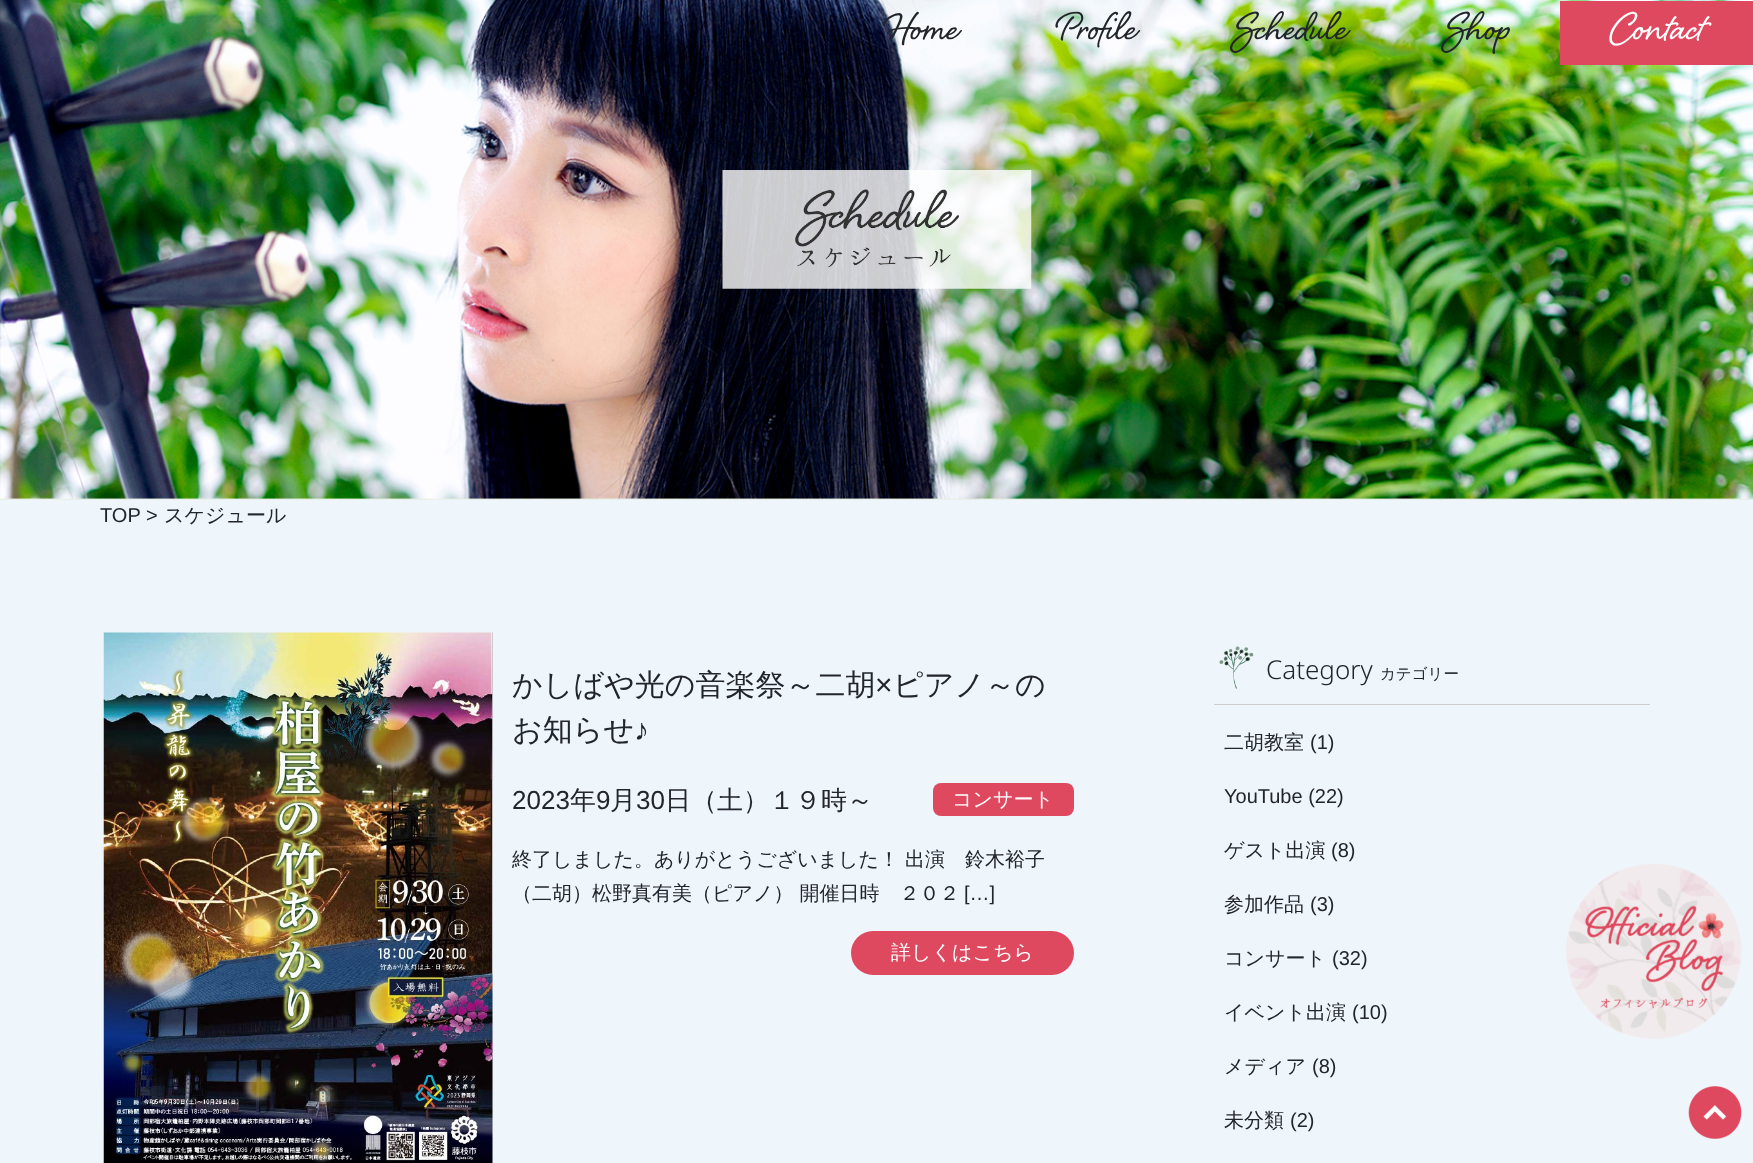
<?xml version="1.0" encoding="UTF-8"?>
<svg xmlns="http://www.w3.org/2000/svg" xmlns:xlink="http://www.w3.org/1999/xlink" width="1753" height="1163">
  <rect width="100%" height="100%" fill="#ffffff" />
  <image x="0" y="0" width="1753" height="499" xlink:href="image1.png" />
  <image x="722" y="170" width="310" height="119" xlink:href="image2.png" />
  <rect x="1560" y="1" width="193" height="64" fill="#df495f" />
  <image x="0" y="498" width="1753" height="665" xlink:href="image3.png" />
  <image x="103" y="632" width="390" height="531" xlink:href="image4.png" />
  <rect x="933" y="783" width="141" height="33" rx="8" fill="#df495f" />
  <rect x="851" y="931" width="223" height="44" rx="22" fill="#df495f" />
  <rect x="1214" y="704" width="436" height="1" fill="#cdcdcd" />
  <image x="1219" y="646" width="35" height="43" xlink:href="image5.png" />
  <image x="1566" y="864" width="176" height="175" xlink:href="image6.png" />
  <image x="1688" y="1086" width="54" height="53" xlink:href="image7.png" />
  <text x="885" y="39" style="font-family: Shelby; font-size: 50px; fill: #22252b">Home</text>
  <text x="1058" y="39" style="font-family: Shelby; font-size: 50px; fill: #22252b">Profile</text>
  <text x="1236" y="39" style="font-family: Shelby; font-size: 50px; fill: #22252b">Schedule</text>
  <text x="1447" y="39" style="font-family: Shelby; font-size: 50px; fill: #22252b">Shop</text>
  <text x="1610" y="39" style="font-family: Shelby; font-size: 50px; fill: #ffffff">Contact</text>
  <text x="100" y="522" style="font-family: Liberation Sans; font-size: 20px; fill: #22252b">TOP &gt;</text>
  <text x="164" y="522" style="font-family: WenQuanYi Zen Hei; font-size: 20px; font-weight: 500; fill: #22252b">スケジュール</text>
  <text x="512" y="695" style="font-family: WenQuanYi Zen Hei; font-size: 30px; font-weight: 500; fill: #22252b">かしばや光の音楽祭～二胡</text>
  <text x="875" y="695" style="font-family: Liberation Sans; font-size: 30px; fill: #22252b">×</text>
  <text x="893" y="695" style="font-family: WenQuanYi Zen Hei; font-size: 30px; font-weight: 500; fill: #22252b">ピアノ～の</text>
  <text x="512" y="740" style="font-family: WenQuanYi Zen Hei; font-size: 30px; font-weight: 500; fill: #22252b">お知らせ</text>
  <text x="634" y="740" style="font-family: Liberation Sans; font-size: 30px; fill: #22252b">♪</text>
  <text x="512" y="809" style="font-family: Liberation Sans; font-size: 26px; fill: #22252b">2023</text>
  <text x="570" y="809" style="font-family: WenQuanYi Zen Hei; font-size: 26px; font-weight: 500; fill: #22252b">年</text>
  <text x="596" y="809" style="font-family: Liberation Sans; font-size: 26px; fill: #22252b">9</text>
  <text x="610" y="809" style="font-family: WenQuanYi Zen Hei; font-size: 26px; font-weight: 500; fill: #22252b">月</text>
  <text x="636" y="809" style="font-family: Liberation Sans; font-size: 26px; fill: #22252b">30</text>
  <text x="665" y="809" style="font-family: WenQuanYi Zen Hei; font-size: 26px; font-weight: 500; fill: #22252b">日（土）１９時～</text>
  <text x="952" y="806" style="font-family: WenQuanYi Zen Hei; font-size: 20px; font-weight: 500; fill: #ffffff">コンサート</text>
  <text x="512" y="866" style="font-family: WenQuanYi Zen Hei; font-size: 20px; font-weight: 500; fill: #22252b">終了しました。ありがとうございました！ 出演　鈴木裕子</text>
  <text x="512" y="900" style="font-family: WenQuanYi Zen Hei; font-size: 20px; font-weight: 500; fill: #22252b">（二胡）松野真有美（ピアノ） 開催日時　２０２</text>
  <text x="964" y="900" style="font-family: Liberation Sans; font-size: 20px; fill: #22252b">[…]</text>
  <text x="891" y="959" style="font-family: WenQuanYi Zen Hei; font-size: 20px; font-weight: 500; fill: #ffffff">詳しくはこちら</text>
  <text x="1266" y="679" style="font-family: Noto Sans; font-size: 26px; font-weight: 300; fill: #22252b">Category</text>
  <text x="1380" y="679" style="font-family: Noto Sans; font-size: 15.5px; font-weight: 300; fill: #22252b">カテゴリー</text>
  <text x="1224" y="749" style="font-family: WenQuanYi Zen Hei; font-size: 20px; font-weight: 500; fill: #22252b">二胡教室</text>
  <text x="1310" y="749" style="font-family: Liberation Sans; font-size: 20px; fill: #22252b">(1)</text>
  <text x="1224" y="803" style="font-family: Liberation Sans; font-size: 20px; fill: #22252b">YouTube (22)</text>
  <text x="1224" y="857" style="font-family: WenQuanYi Zen Hei; font-size: 20px; font-weight: 500; fill: #22252b">ゲスト出演</text>
  <text x="1331" y="857" style="font-family: Liberation Sans; font-size: 20px; fill: #22252b">(8)</text>
  <text x="1224" y="911" style="font-family: WenQuanYi Zen Hei; font-size: 20px; font-weight: 500; fill: #22252b">参加作品</text>
  <text x="1310" y="911" style="font-family: Liberation Sans; font-size: 20px; fill: #22252b">(3)</text>
  <text x="1224" y="965" style="font-family: WenQuanYi Zen Hei; font-size: 20px; font-weight: 500; fill: #22252b">コンサート</text>
  <text x="1332" y="965" style="font-family: Liberation Sans; font-size: 20px; fill: #22252b">(32)</text>
  <text x="1224" y="1019" style="font-family: WenQuanYi Zen Hei; font-size: 20px; font-weight: 500; fill: #22252b">イベント出演</text>
  <text x="1352" y="1019" style="font-family: Liberation Sans; font-size: 20px; fill: #22252b">(10)</text>
  <text x="1224" y="1073" style="font-family: WenQuanYi Zen Hei; font-size: 20px; font-weight: 500; fill: #22252b">メディア</text>
  <text x="1312" y="1073" style="font-family: Liberation Sans; font-size: 20px; fill: #22252b">(8)</text>
  <text x="1224" y="1127" style="font-family: WenQuanYi Zen Hei; font-size: 20px; font-weight: 500; fill: #22252b">未分類</text>
  <text x="1290" y="1127" style="font-family: Liberation Sans; font-size: 20px; fill: #22252b">(2)</text>
</svg>
